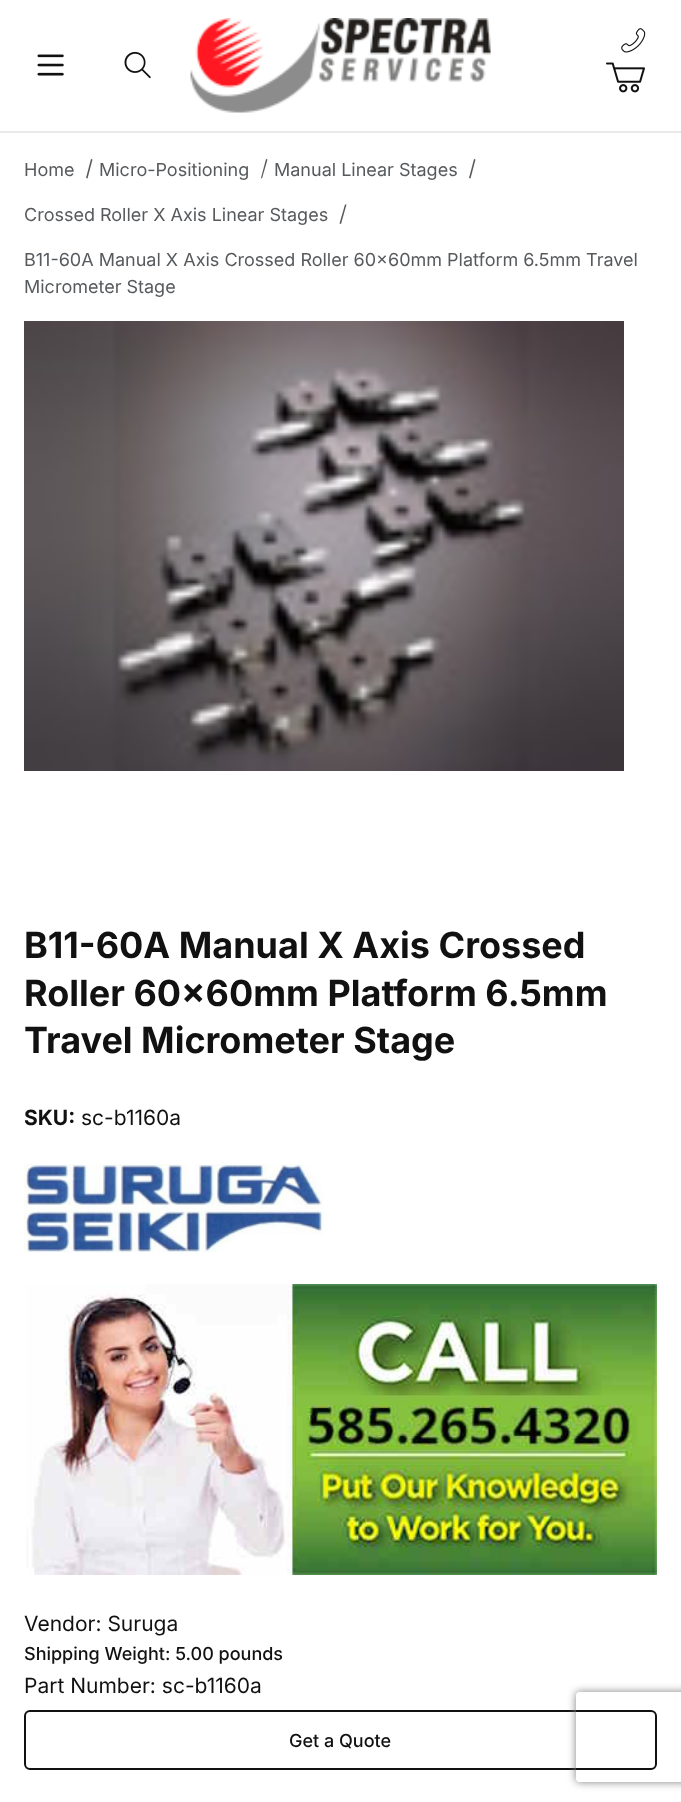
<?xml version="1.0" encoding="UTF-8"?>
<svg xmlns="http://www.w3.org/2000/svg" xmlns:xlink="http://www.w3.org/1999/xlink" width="681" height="1802">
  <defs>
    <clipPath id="clip1"><path d="M 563 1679 h 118 v 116 h -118 z m 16 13 h 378 c 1.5 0 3 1.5 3 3 v 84 c 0 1.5 -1.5 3 -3 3 h -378 c -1.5 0 -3 -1.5 -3 -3 v -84 c 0 -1.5 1.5 -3 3 -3 z" clip-rule="evenodd" /></clipPath>
  </defs>
  <rect width="100%" height="100%" fill="#ffffff" />
  <rect y="131" width="681" height="2" fill="#eaeaea" />
  <image x="37" y="54" width="27" height="22" xlink:href="image1.png" />
  <image x="124" y="51" width="27" height="28" xlink:href="image2.png" />
  <image x="190" y="18" width="301" height="95" xlink:href="image3.png" />
  <image x="621" y="28" width="25" height="25" xlink:href="image4.png" />
  <image x="606" y="62" width="39" height="31" xlink:href="image5.png" />
  <path d="M 91 159 l 1.5 0.5 l -5 19 l -1.5 -0.5 z" fill="#575a5d" />
  <path d="M 266 159 l 1.5 0.5 l -5.5 19 l -1 -0.5 z" fill="#575a5d" />
  <path d="M 474 159 l 1.5 0.5 l -5 19 l -1.5 -0.5 z" fill="#575a5d" />
  <path d="M 345 204.5 h 1.5 l -5.5 19.5 l -1.5 -0.5 z" fill="#575a5d" />
  <image x="24" y="321" width="600" height="450" xlink:href="image6.png" />
  <image x="24" y="1164" width="300" height="89" xlink:href="image7.png" />
  <image x="26" y="1284" width="631" height="291" xlink:href="image8.png" />
  <rect x="25" y="1711" width="631" height="58" rx="5" fill="none" stroke="#111111" stroke-width="2" />
  <g clip-path="url(#clip1)">
    <rect x="576" y="1692" width="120" height="90" rx="3" fill="#808080" filter="blur(4px)" />
  </g>
  <text x="24" y="176" style="font-family: Inter; font-size: 18px; fill: #575a5d">Home</text>
  <text x="99" y="176" style="font-family: Inter; font-size: 18px; fill: #575a5d">Micro-Positioning</text>
  <text x="274" y="176" style="font-family: Inter; font-size: 18px; fill: #575a5d">Manual Linear Stages</text>
  <text x="24" y="221" style="font-family: Inter; font-size: 18px; fill: #575a5d">Crossed Roller X Axis Linear Stages</text>
  <text x="24" y="266" style="font-family: Inter; font-size: 18px; fill: #575a5d">B11-60A Manual X Axis Crossed Roller 60x60mm Platform 6.5mm Travel</text>
  <text x="24" y="293" style="font-family: Inter; font-size: 18px; fill: #575a5d">Micrometer Stage</text>
  <text x="24" y="958" style="font-family: Inter; font-size: 36px; font-weight: bold; fill: #111111">B11-60A Manual X Axis Crossed</text>
  <text x="24" y="1006" style="font-family: Inter; font-size: 36px; font-weight: bold; fill: #111111">Roller 60x60mm Platform 6.5mm</text>
  <text x="24" y="1053" style="font-family: Inter; font-size: 36px; font-weight: bold; fill: #111111">Travel Micrometer Stage</text>
  <text x="24" y="1125" style="font-family: Inter; font-size: 21px; font-weight: bold; fill: #111111">SKU:</text>
  <text x="81" y="1125" style="font-family: Inter; font-size: 21px; fill: #111111">sc-b1160a</text>
  <text x="24" y="1631" style="font-family: Inter; font-size: 21px; fill: #111111">Vendor: Suruga</text>
  <text x="24" y="1660" style="font-family: Inter; font-size: 18px; font-weight: 500; fill: #111111">Shipping Weight: 5.00 pounds</text>
  <text x="24" y="1693" style="font-family: Inter; font-size: 21px; fill: #111111">Part Number: sc-b1160a</text>
  <text x="289" y="1747" style="font-family: Inter; font-size: 18px; font-weight: 500; fill: #111111">Get a Quote</text>
</svg>
